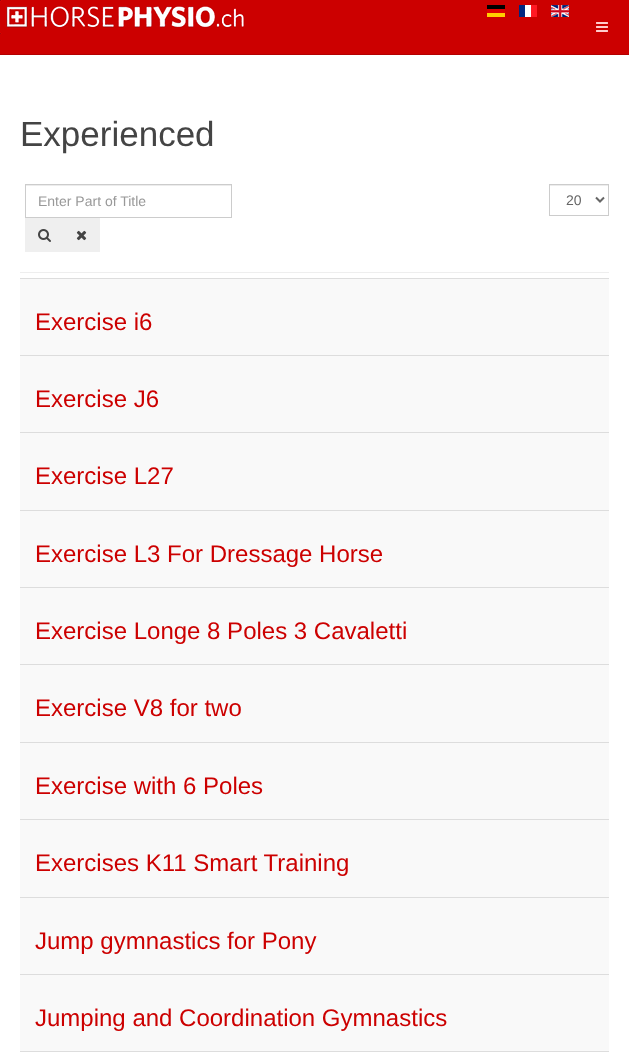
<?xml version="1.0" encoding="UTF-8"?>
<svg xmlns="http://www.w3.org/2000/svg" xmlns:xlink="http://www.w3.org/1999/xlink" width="629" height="1052">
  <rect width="100%" height="100%" fill="#ffffff" />
  <rect width="629" height="54" fill="#cc0000" />
  <rect y="54" width="629" height="1" fill="#b30000" />
  <image x="0" y="0" width="250" height="34" xlink:href="image1.png" />
  <image x="487" y="5" width="18" height="12" xlink:href="image2.png" />
  <image x="519" y="5" width="18" height="12" xlink:href="image3.png" />
  <image x="551" y="5" width="18" height="12" xlink:href="image4.png" />
  <image x="596" y="22" width="12" height="10" xlink:href="image5.png" />
  <rect x="20" y="272" width="589" height="1" fill="#eeeeee" />
  <rect x="26" y="185" width="205" height="1" fill="#ececec" />
  <rect x="25.5" y="184.5" width="206" height="33" fill="none" stroke="#cccccc" />
  <rect x="25" y="218" width="75" height="34" fill="#efefef" />
  <image x="38" y="229" width="13" height="13" xlink:href="image6.png" />
  <image x="76" y="230" width="11" height="11" xlink:href="image7.png" />
  <rect x="550" y="185" width="58" height="1" fill="#ececec" />
  <rect x="549.5" y="184.5" width="59" height="31" fill="none" stroke="#cccccc" />
  <path d="M 596 197.5 l 4 4 l 4 -4" fill="none" stroke="#666666" stroke-width="2" />
  <rect x="20" y="278" width="589" height="1" fill="#dddddd" />
  <rect x="20" y="279" width="589" height="76" fill="#f9f9f9" />
  <rect x="20" y="355" width="589" height="1" fill="#dddddd" />
  <rect x="20" y="356" width="589" height="76" fill="#f9f9f9" />
  <rect x="20" y="432" width="589" height="1" fill="#dddddd" />
  <rect x="20" y="433" width="589" height="77" fill="#f9f9f9" />
  <rect x="20" y="510" width="589" height="1" fill="#dddddd" />
  <rect x="20" y="511" width="589" height="76" fill="#f9f9f9" />
  <rect x="20" y="587" width="589" height="1" fill="#dddddd" />
  <rect x="20" y="588" width="589" height="76" fill="#f9f9f9" />
  <rect x="20" y="664" width="589" height="1" fill="#dddddd" />
  <rect x="20" y="665" width="589" height="77" fill="#f9f9f9" />
  <rect x="20" y="742" width="589" height="1" fill="#dddddd" />
  <rect x="20" y="743" width="589" height="76" fill="#f9f9f9" />
  <rect x="20" y="819" width="589" height="1" fill="#dddddd" />
  <rect x="20" y="820" width="589" height="77" fill="#f9f9f9" />
  <rect x="20" y="897" width="589" height="1" fill="#dddddd" />
  <rect x="20" y="898" width="589" height="76" fill="#f9f9f9" />
  <rect x="20" y="974" width="589" height="1" fill="#dddddd" />
  <rect x="20" y="975" width="589" height="76" fill="#f9f9f9" />
  <rect x="20" y="1051" width="589" height="1" fill="#dddddd" />
  <text x="20" y="146" style="font-family: Liberation Sans; font-size: 35px; fill: #444444">Experienced</text>
  <text x="38" y="206" style="font-family: Liberation Sans; font-size: 14px; fill: #999999">Enter Part of Title</text>
  <text x="566" y="205" style="font-family: Liberation Sans; font-size: 14px; fill: #666666">20</text>
  <text x="35" y="330" style="font-family: Liberation Sans; font-size: 24px; fill: #cc0000">Exercise i6</text>
  <text x="35" y="407" style="font-family: Liberation Sans; font-size: 24px; fill: #cc0000">Exercise J6</text>
  <text x="35" y="484" style="font-family: Liberation Sans; font-size: 24px; fill: #cc0000">Exercise L27</text>
  <text x="35" y="562" style="font-family: Liberation Sans; font-size: 24px; fill: #cc0000">Exercise L3 For Dressage Horse</text>
  <text x="35" y="639" style="font-family: Liberation Sans; font-size: 24px; fill: #cc0000">Exercise Longe 8 Poles 3 Cavaletti</text>
  <text x="35" y="716" style="font-family: Liberation Sans; font-size: 24px; fill: #cc0000">Exercise V8 for two</text>
  <text x="35" y="794" style="font-family: Liberation Sans; font-size: 24px; fill: #cc0000">Exercise with 6 Poles</text>
  <text x="35" y="871" style="font-family: Liberation Sans; font-size: 24px; fill: #cc0000">Exercises K11 Smart Training</text>
  <text x="35" y="949" style="font-family: Liberation Sans; font-size: 24px; fill: #cc0000">Jump gymnastics for Pony</text>
  <text x="35" y="1026" style="font-family: Liberation Sans; font-size: 24px; fill: #cc0000">Jumping and Coordination Gymnastics</text>
</svg>
